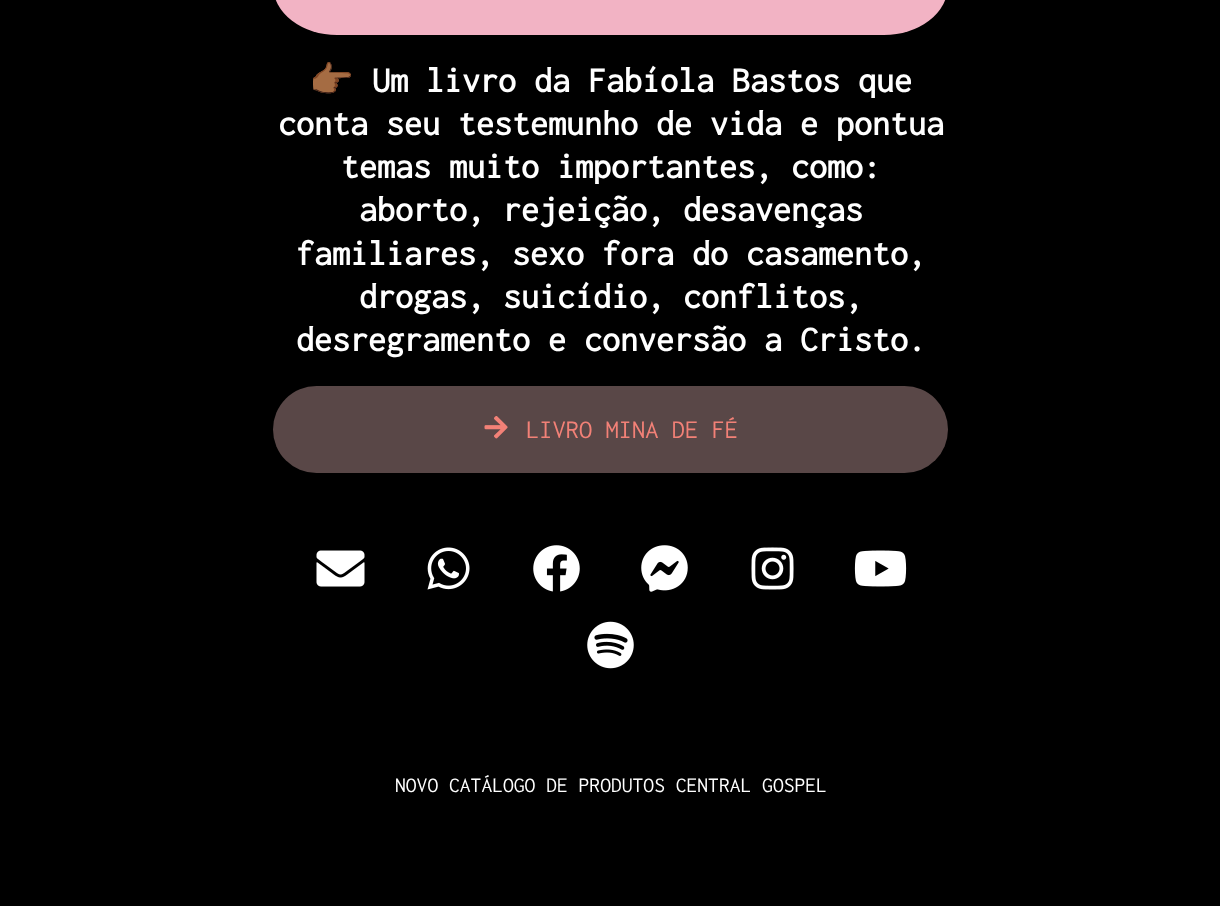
<?xml version="1.0" encoding="UTF-8"?>
<svg xmlns="http://www.w3.org/2000/svg" xmlns:xlink="http://www.w3.org/1999/xlink" width="1220" height="906">
  <rect width="100%" height="100%" fill="#000000" />
  <rect x="273" y="-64" width="675" height="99" rx="64" fill="#f2b3c4" />
  <rect x="273" y="386" width="675" height="87" rx="43.5" fill="#594747" />
  <image x="484" y="416" width="24" height="23" xlink:href="image1.png" />
  <image x="316" y="550" width="49" height="37" xlink:href="image2.png" />
  <image x="427" y="547" width="43" height="43" xlink:href="image3.png" />
  <image x="533" y="545" width="47" height="47" xlink:href="image4.png" />
  <image x="641" y="545" width="47" height="47" xlink:href="image5.png" />
  <image x="751" y="547" width="43" height="43" xlink:href="image6.png" />
  <image x="854" y="550" width="53" height="37" xlink:href="image7.png" />
  <image x="587" y="621" width="47" height="48" xlink:href="image8.png" />
  <text x="309" y="92" style="font-family: Noto Color Emoji; font-size: 36px; font-weight: bold; fill: #ffffff">👉🏾</text>
  <text x="372" y="92" style="font-family: Inconsolata; font-size: 36px; font-weight: bold; fill: #ffffff">Um livro da Fabíola Bastos que</text>
  <text x="278" y="135" style="font-family: Inconsolata; font-size: 36px; font-weight: bold; fill: #ffffff">conta seu testemunho de vida e pontua</text>
  <text x="341" y="178" style="font-family: Inconsolata; font-size: 36px; font-weight: bold; fill: #ffffff">temas muito importantes, como:</text>
  <text x="359" y="221" style="font-family: Inconsolata; font-size: 36px; font-weight: bold; fill: #ffffff">aborto, rejeição, desavenças</text>
  <text x="296" y="265" style="font-family: Inconsolata; font-size: 36px; font-weight: bold; fill: #ffffff">familiares, sexo fora do casamento,</text>
  <text x="359" y="308" style="font-family: Inconsolata; font-size: 36px; font-weight: bold; fill: #ffffff">drogas, suicídio, conflitos,</text>
  <text x="296" y="351" style="font-family: Inconsolata; font-size: 36px; font-weight: bold; fill: #ffffff">desregramento e conversão a Cristo.</text>
  <text x="526" y="438" style="font-family: Inconsolata; font-size: 26.5px; fill: #f28177">LIVRO MINA DE FÉ</text>
  <text x="395" y="792" style="font-family: Inconsolata; font-size: 21.6px; fill: #ffffff">NOVO CATÁLOGO DE PRODUTOS CENTRAL GOSPEL</text>
</svg>
